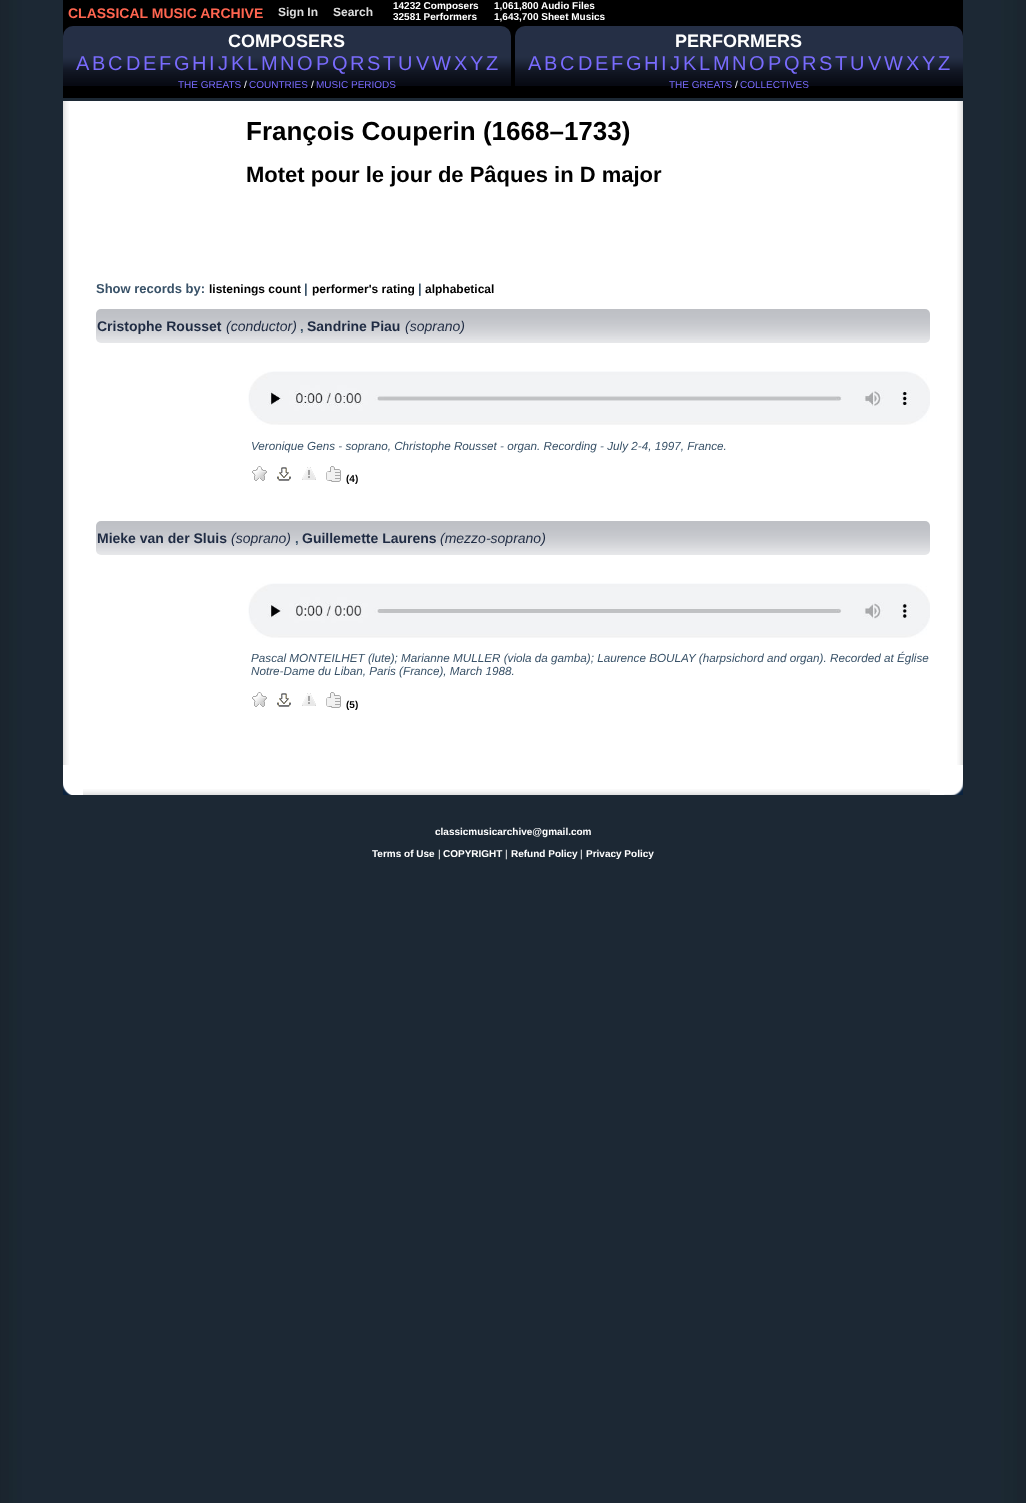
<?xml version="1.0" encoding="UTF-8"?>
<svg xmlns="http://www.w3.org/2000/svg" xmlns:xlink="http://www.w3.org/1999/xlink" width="1026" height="1503">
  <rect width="100%" height="100%" fill="#ffffff" />
  <image x="0" y="0" width="1026" height="1503" xlink:href="image1.png" />
  <rect x="63" width="900" height="98" fill="#000000" />
  <image x="63" y="26" width="448" height="60" xlink:href="image2.png" />
  <image x="515" y="26" width="448" height="60" xlink:href="image3.png" />
  <rect x="63" y="101" width="900" height="694" fill="#ffffff" />
  <image x="63" y="101" width="6" height="619" xlink:href="image4.png" />
  <image x="96" y="309" width="834" height="34" xlink:href="image5.png" />
  <image x="248" y="371" width="682" height="54" xlink:href="image6.png" />
  <image x="252" y="466" width="15" height="15" xlink:href="image7.png" />
  <image x="277" y="467" width="14" height="14" xlink:href="image8.png" />
  <image x="302" y="467" width="14" height="13" xlink:href="image9.png" />
  <image x="326" y="466" width="15" height="16" xlink:href="image10.png" />
  <image x="96" y="521" width="834" height="34" xlink:href="image5.png" />
  <image x="248" y="583" width="682" height="55" xlink:href="image11.png" />
  <image x="252" y="692" width="15" height="15" xlink:href="image7.png" />
  <image x="277" y="693" width="14" height="14" xlink:href="image8.png" />
  <image x="302" y="693" width="14" height="13" xlink:href="image9.png" />
  <image x="326" y="692" width="15" height="16" xlink:href="image10.png" />
  <image x="957" y="101" width="6" height="619" xlink:href="image12.png" />
  <image x="63" y="720" width="6" height="45" xlink:href="image13.png" />
  <image x="957" y="720" width="6" height="45" xlink:href="image14.png" />
  <image x="63" y="783" width="9" height="12" xlink:href="image15.png" />
  <image x="83" y="789" width="847" height="6" xlink:href="image16.png" />
  <image x="944" y="780" width="19" height="15" xlink:href="image17.png" />
  <text x="68" y="18" style="font-family: Liberation Sans; font-size: 14px; font-weight: bold; fill: #ff6550">CLASSICAL MUSIC ARCHIVE</text>
  <text x="278" y="16" style="font-family: Liberation Sans; font-size: 12px; font-weight: bold; fill: #dddddd">Sign In</text>
  <text x="333" y="16" style="font-family: Liberation Sans; font-size: 12px; font-weight: bold; fill: #dddddd">Search</text>
  <text x="393" y="9" style="font-family: Liberation Sans; font-size: 10px; font-weight: bold; fill: #ffffff">14232 Composers</text>
  <text x="393" y="20" style="font-family: Liberation Sans; font-size: 10px; font-weight: bold; fill: #ffffff">32581 Performers</text>
  <text x="494" y="9" style="font-family: Liberation Sans; font-size: 10px; font-weight: bold; fill: #ffffff">1,061,800</text>
  <text x="541" y="9" style="font-family: Liberation Sans; font-size: 10px; font-weight: bold; fill: #ffffff">Audio Files</text>
  <text x="494" y="20" style="font-family: Liberation Sans; font-size: 10px; font-weight: bold; fill: #ffffff">1,643,700 Sheet Musics</text>
  <text x="228" y="47" style="font-family: Liberation Sans; font-size: 18px; font-weight: bold; fill: #ffffff">COMPOSERS</text>
  <text x="76" y="70" style="font-family: Liberation Sans; font-size: 20px; fill: #796bfd">A</text>
  <text x="92" y="70" style="font-family: Liberation Sans; font-size: 20px; fill: #796bfd">B</text>
  <text x="108" y="70" style="font-family: Liberation Sans; font-size: 20px; fill: #796bfd">C</text>
  <text x="126" y="70" style="font-family: Liberation Sans; font-size: 20px; fill: #796bfd">D</text>
  <text x="143" y="70" style="font-family: Liberation Sans; font-size: 20px; fill: #796bfd">E</text>
  <text x="159" y="70" style="font-family: Liberation Sans; font-size: 20px; fill: #796bfd">F</text>
  <text x="174" y="70" style="font-family: Liberation Sans; font-size: 20px; fill: #796bfd">G</text>
  <text x="192" y="70" style="font-family: Liberation Sans; font-size: 20px; fill: #796bfd">H</text>
  <text x="209" y="70" style="font-family: Liberation Sans; font-size: 20px; fill: #796bfd">I</text>
  <text x="218" y="70" style="font-family: Liberation Sans; font-size: 20px; fill: #796bfd">J</text>
  <text x="231" y="70" style="font-family: Liberation Sans; font-size: 20px; fill: #796bfd">K</text>
  <text x="247" y="70" style="font-family: Liberation Sans; font-size: 20px; fill: #796bfd">L</text>
  <text x="261" y="70" style="font-family: Liberation Sans; font-size: 20px; fill: #796bfd">M</text>
  <text x="280" y="70" style="font-family: Liberation Sans; font-size: 20px; fill: #796bfd">N</text>
  <text x="297" y="70" style="font-family: Liberation Sans; font-size: 20px; fill: #796bfd">O</text>
  <text x="316" y="70" style="font-family: Liberation Sans; font-size: 20px; fill: #796bfd">P</text>
  <text x="332" y="70" style="font-family: Liberation Sans; font-size: 20px; fill: #796bfd">Q</text>
  <text x="350" y="70" style="font-family: Liberation Sans; font-size: 20px; fill: #796bfd">R</text>
  <text x="367" y="70" style="font-family: Liberation Sans; font-size: 20px; fill: #796bfd">S</text>
  <text x="383" y="70" style="font-family: Liberation Sans; font-size: 20px; fill: #796bfd">T</text>
  <text x="398" y="70" style="font-family: Liberation Sans; font-size: 20px; fill: #796bfd">U</text>
  <text x="416" y="70" style="font-family: Liberation Sans; font-size: 20px; fill: #796bfd">V</text>
  <text x="432" y="70" style="font-family: Liberation Sans; font-size: 20px; fill: #796bfd">W</text>
  <text x="454" y="70" style="font-family: Liberation Sans; font-size: 20px; fill: #796bfd">X</text>
  <text x="470" y="70" style="font-family: Liberation Sans; font-size: 20px; fill: #796bfd">Y</text>
  <text x="486" y="70" style="font-family: Liberation Sans; font-size: 20px; fill: #796bfd">Z</text>
  <text x="178" y="88" style="font-family: Liberation Sans; font-size: 10px; fill: #796bfd">THE GREATS</text>
  <text x="244" y="88" style="font-family: Liberation Sans; font-size: 10px; fill: #ffffff">/</text>
  <text x="249" y="88" style="font-family: Liberation Sans; font-size: 10px; fill: #796bfd">COUNTRIES</text>
  <text x="311" y="88" style="font-family: Liberation Sans; font-size: 10px; fill: #ffffff">/</text>
  <text x="316" y="88" style="font-family: Liberation Sans; font-size: 10px; fill: #796bfd">MUSIC PERIODS</text>
  <text x="675" y="47" style="font-family: Liberation Sans; font-size: 18px; font-weight: bold; fill: #ffffff">PERFORMERS</text>
  <text x="528" y="70" style="font-family: Liberation Sans; font-size: 20px; fill: #796bfd">A</text>
  <text x="544" y="70" style="font-family: Liberation Sans; font-size: 20px; fill: #796bfd">B</text>
  <text x="560" y="70" style="font-family: Liberation Sans; font-size: 20px; fill: #796bfd">C</text>
  <text x="578" y="70" style="font-family: Liberation Sans; font-size: 20px; fill: #796bfd">D</text>
  <text x="595" y="70" style="font-family: Liberation Sans; font-size: 20px; fill: #796bfd">E</text>
  <text x="611" y="70" style="font-family: Liberation Sans; font-size: 20px; fill: #796bfd">F</text>
  <text x="626" y="70" style="font-family: Liberation Sans; font-size: 20px; fill: #796bfd">G</text>
  <text x="644" y="70" style="font-family: Liberation Sans; font-size: 20px; fill: #796bfd">H</text>
  <text x="661" y="70" style="font-family: Liberation Sans; font-size: 20px; fill: #796bfd">I</text>
  <text x="670" y="70" style="font-family: Liberation Sans; font-size: 20px; fill: #796bfd">J</text>
  <text x="683" y="70" style="font-family: Liberation Sans; font-size: 20px; fill: #796bfd">K</text>
  <text x="699" y="70" style="font-family: Liberation Sans; font-size: 20px; fill: #796bfd">L</text>
  <text x="713" y="70" style="font-family: Liberation Sans; font-size: 20px; fill: #796bfd">M</text>
  <text x="732" y="70" style="font-family: Liberation Sans; font-size: 20px; fill: #796bfd">N</text>
  <text x="749" y="70" style="font-family: Liberation Sans; font-size: 20px; fill: #796bfd">O</text>
  <text x="768" y="70" style="font-family: Liberation Sans; font-size: 20px; fill: #796bfd">P</text>
  <text x="784" y="70" style="font-family: Liberation Sans; font-size: 20px; fill: #796bfd">Q</text>
  <text x="802" y="70" style="font-family: Liberation Sans; font-size: 20px; fill: #796bfd">R</text>
  <text x="819" y="70" style="font-family: Liberation Sans; font-size: 20px; fill: #796bfd">S</text>
  <text x="835" y="70" style="font-family: Liberation Sans; font-size: 20px; fill: #796bfd">T</text>
  <text x="850" y="70" style="font-family: Liberation Sans; font-size: 20px; fill: #796bfd">U</text>
  <text x="868" y="70" style="font-family: Liberation Sans; font-size: 20px; fill: #796bfd">V</text>
  <text x="884" y="70" style="font-family: Liberation Sans; font-size: 20px; fill: #796bfd">W</text>
  <text x="906" y="70" style="font-family: Liberation Sans; font-size: 20px; fill: #796bfd">X</text>
  <text x="922" y="70" style="font-family: Liberation Sans; font-size: 20px; fill: #796bfd">Y</text>
  <text x="938" y="70" style="font-family: Liberation Sans; font-size: 20px; fill: #796bfd">Z</text>
  <text x="669" y="88" style="font-family: Liberation Sans; font-size: 10px; fill: #796bfd">THE GREATS</text>
  <text x="735" y="88" style="font-family: Liberation Sans; font-size: 10px; fill: #ffffff">/</text>
  <text x="740" y="88" style="font-family: Liberation Sans; font-size: 10px; fill: #796bfd">COLLECTIVES</text>
  <text x="246" y="140" style="font-family: Liberation Sans; font-size: 26px; font-weight: bold; fill: #000000">François Couperin (1668–1733)</text>
  <text x="246" y="182" style="font-family: Liberation Sans; font-size: 22px; font-weight: bold; fill: #000000">Motet pour le jour de Pâques in D major</text>
  <text x="96" y="293" style="font-family: Liberation Sans; font-size: 13px; font-weight: bold; fill: #395268">Show records by:</text>
  <text x="209" y="293" style="font-family: Liberation Sans; font-size: 12px; font-weight: bold; fill: #000000">listenings count</text>
  <text x="304" y="293" style="font-family: Liberation Sans; font-size: 13px; font-weight: bold; fill: #395268">|</text>
  <text x="312" y="293" style="font-family: Liberation Sans; font-size: 12px; font-weight: bold; fill: #000000">performer's rating</text>
  <text x="418" y="293" style="font-family: Liberation Sans; font-size: 13px; font-weight: bold; fill: #395268">|</text>
  <text x="425" y="293" style="font-family: Liberation Sans; font-size: 12px; font-weight: bold; fill: #000000">alphabetical</text>
  <text x="97" y="331" style="font-family: Liberation Sans; font-size: 14px; font-weight: bold; fill: #1f2b43">Cristophe Rousset</text>
  <text x="226" y="331" style="font-family: Liberation Sans; font-size: 14px; font-style: italic; fill: #1f2b43">(conductor)</text>
  <text x="300" y="331" style="font-family: Liberation Sans; font-size: 13px; font-weight: bold; fill: #395268">,</text>
  <text x="307" y="331" style="font-family: Liberation Sans; font-size: 14px; font-weight: bold; fill: #1f2b43">Sandrine Piau</text>
  <text x="405" y="331" style="font-family: Liberation Sans; font-size: 14px; font-style: italic; fill: #1f2b43">(soprano)</text>
  <text x="251" y="450" style="font-family: Liberation Sans; font-size: 11.7px; font-style: italic; fill: #395268">Veronique Gens - soprano, Christophe Rousset - organ. Recording - July 2-4, 1997, France.</text>
  <text x="346" y="482" style="font-family: Liberation Sans; font-size: 10px; font-weight: bold; fill: #000000">(4)</text>
  <text x="97" y="543" style="font-family: Liberation Sans; font-size: 14px; font-weight: bold; fill: #1f2b43">Mieke van der Sluis</text>
  <text x="231" y="543" style="font-family: Liberation Sans; font-size: 14px; font-style: italic; fill: #1f2b43">(soprano)</text>
  <text x="295" y="543" style="font-family: Liberation Sans; font-size: 13px; font-weight: bold; fill: #395268">,</text>
  <text x="302" y="543" style="font-family: Liberation Sans; font-size: 14px; font-weight: bold; fill: #1f2b43">Guillemette Laurens</text>
  <text x="440" y="543" style="font-family: Liberation Sans; font-size: 14px; font-style: italic; fill: #1f2b43">(mezzo-soprano)</text>
  <text x="251" y="662" style="font-family: Liberation Sans; font-size: 11.7px; font-style: italic; fill: #395268">Pascal MONTEILHET (lute); Marianne MULLER (viola da gamba); Laurence BOULAY (harpsichord and organ). Recorded at Église</text>
  <text x="251" y="675" style="font-family: Liberation Sans; font-size: 11.7px; font-style: italic; fill: #395268">Notre-Dame du Liban, Paris (France), March 1988.</text>
  <text x="346" y="708" style="font-family: Liberation Sans; font-size: 10px; font-weight: bold; fill: #000000">(5)</text>
  <text x="435" y="835" style="font-family: Liberation Sans; font-size: 10px; font-weight: bold; fill: #ffffff">classicmusicarchive@gmail.com</text>
  <text x="372" y="857" style="font-family: Liberation Sans; font-size: 10px; font-weight: bold; fill: #ffffff">Terms of Use</text>
  <text x="438" y="857" style="font-family: Liberation Sans; font-size: 10px; fill: #ffffff">|</text>
  <text x="443" y="857" style="font-family: Liberation Sans; font-size: 10px; font-weight: bold; fill: #ffffff">COPYRIGHT</text>
  <text x="505" y="857" style="font-family: Liberation Sans; font-size: 10px; fill: #ffffff">|</text>
  <text x="511" y="857" style="font-family: Liberation Sans; font-size: 10px; font-weight: bold; fill: #ffffff">Refund Policy</text>
  <text x="580" y="857" style="font-family: Liberation Sans; font-size: 10px; fill: #ffffff">|</text>
  <text x="586" y="857" style="font-family: Liberation Sans; font-size: 10px; font-weight: bold; fill: #ffffff">Privacy Policy</text>
</svg>
